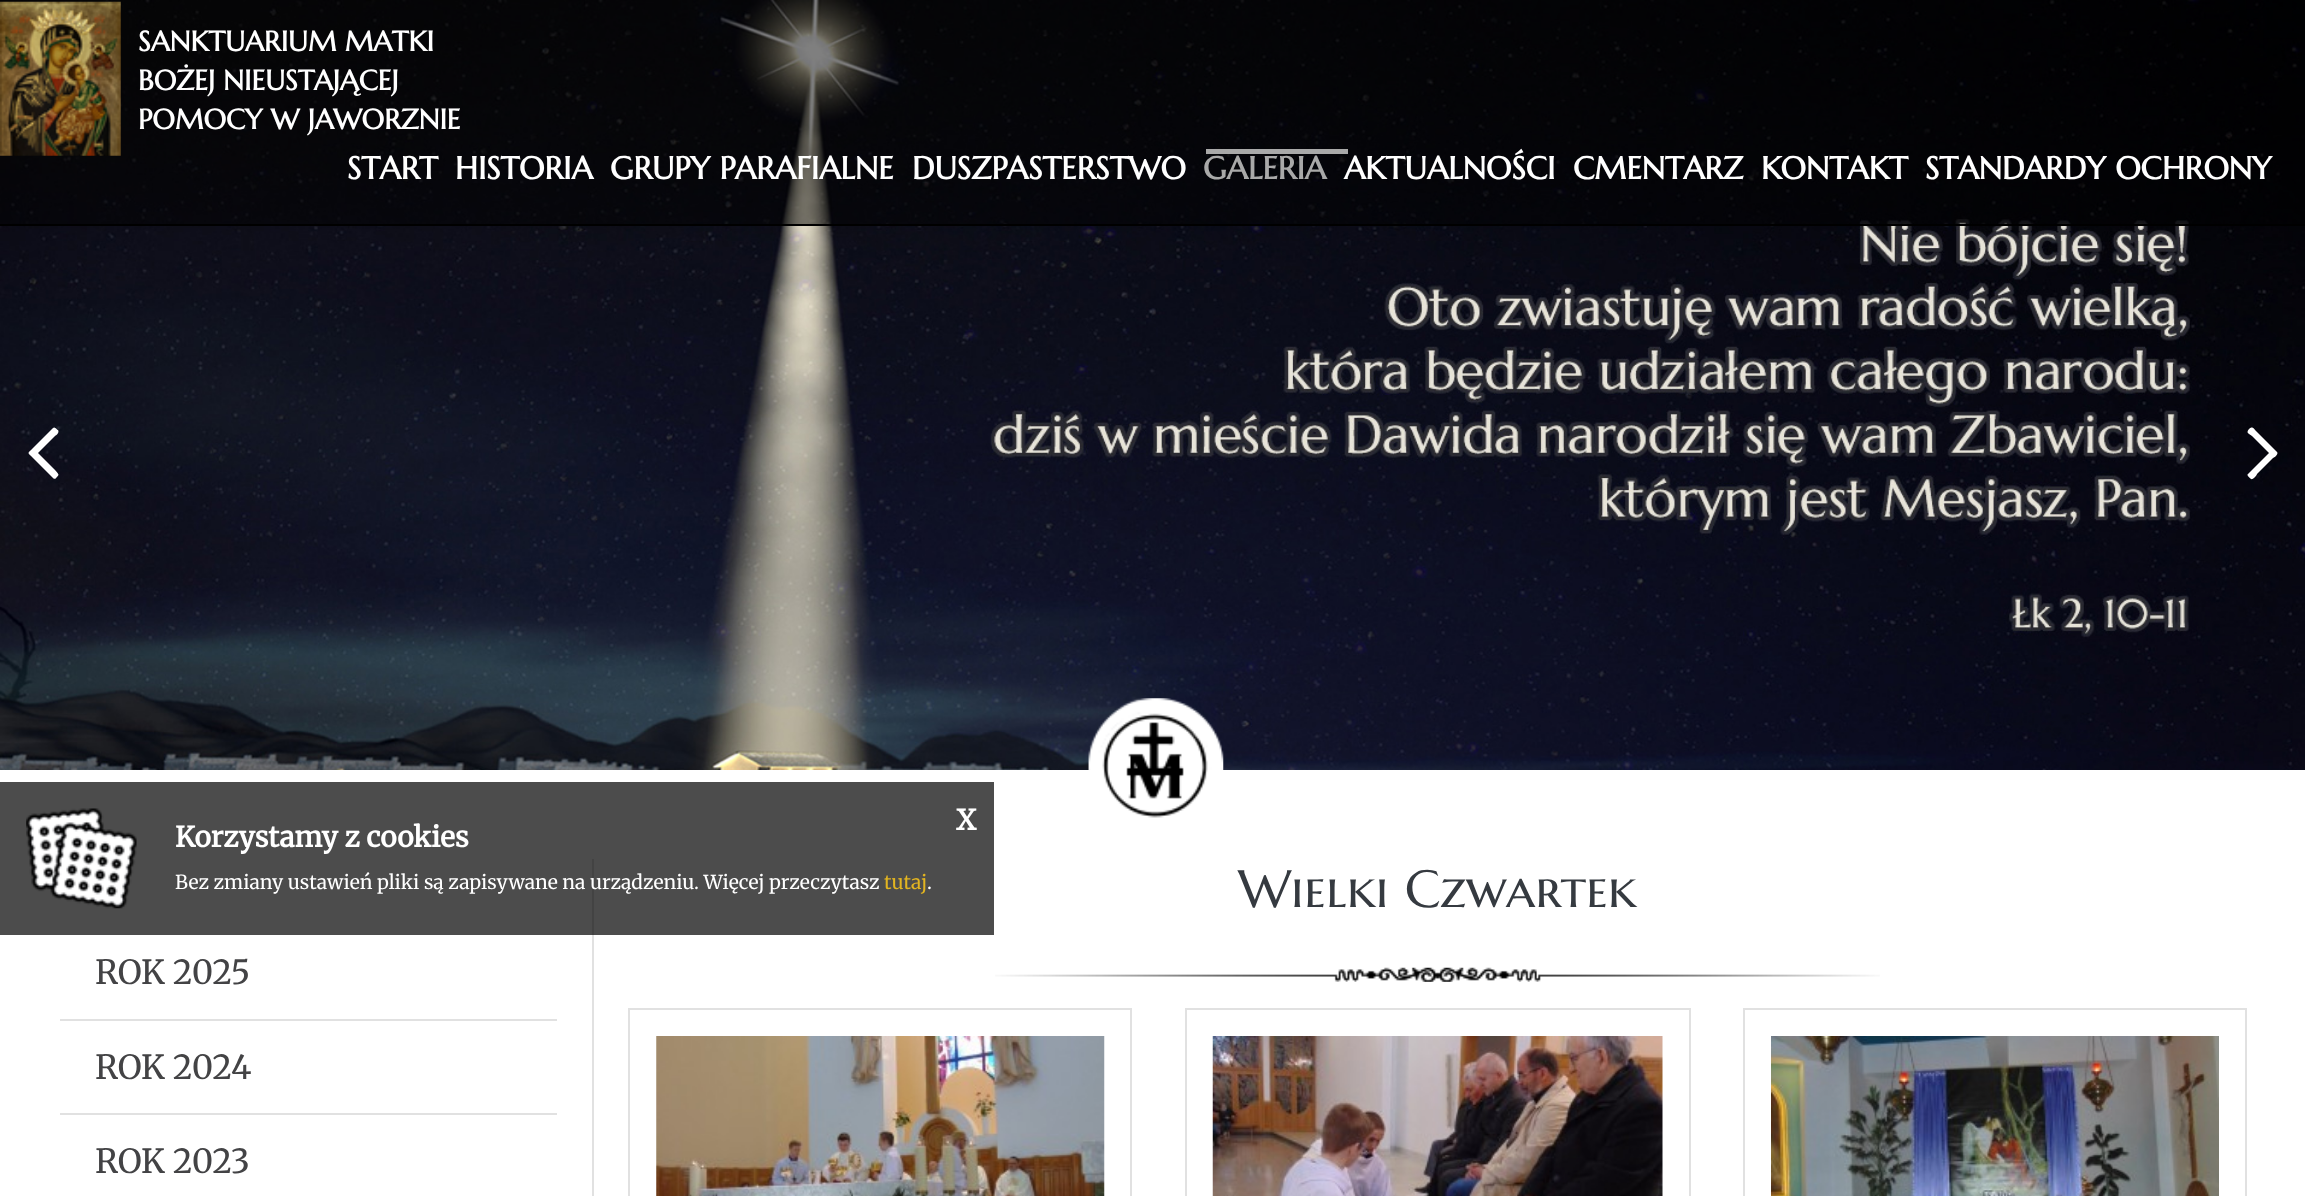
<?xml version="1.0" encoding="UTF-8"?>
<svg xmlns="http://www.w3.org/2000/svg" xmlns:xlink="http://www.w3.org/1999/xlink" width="2305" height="1196">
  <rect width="100%" height="100%" fill="#ffffff" />
  <image x="0" y="0" width="2305" height="770" xlink:href="image1.png" />
  <path d="M 58 430 c 2 3 -3 6 -3 6 l -17 17 l 17 17 c 3 4 5 4 2 7 c -1 1 -2 3 -4 1 l -20 -20 c -6 -6 -6 -4 0 -10 l 20 -20 c 2 -2 4 2 5 2 z" fill="#ffffff" />
  <path d="M 2277 452 c 2 2 -3 6 -4 6 l -16 16 c 0 1 -4 6 -6 5 c -1 -1 -5 -4 -3 -5 l 21 -21 l -17 -17 c -4 -3 -6 -3 -3 -7 c 4 -3 4 -1 8 3 z" fill="#ffffff" />
  <image x="1088" y="698" width="136" height="120" xlink:href="image2.png" />
  <rect width="2305" height="224" fill="#000000" fill-opacity="0.5" />
  <rect y="224" width="2305" height="2" fill="#000000" />
  <image x="0" y="1" width="121" height="155" xlink:href="image3.png" />
  <rect x="1206" y="149" width="142" height="5" fill="#a9a9a9" />
  <image x="995" y="967" width="885" height="15" xlink:href="image4.png" />
  <rect x="629" y="1009" width="502" height="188" fill="none" stroke="#e1e1e1" stroke-width="2" />
  <image x="656" y="1036" width="449" height="160" xlink:href="image5.png" />
  <rect x="1186" y="1009" width="504" height="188" fill="none" stroke="#e1e1e1" stroke-width="2" />
  <image x="1212" y="1036" width="451" height="160" xlink:href="image6.png" />
  <rect x="1744" y="1009" width="502" height="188" fill="none" stroke="#e1e1e1" stroke-width="2" />
  <image x="1771" y="1036" width="448" height="160" xlink:href="image7.png" />
  <rect x="592" y="859" width="2" height="337" fill="#e1e1e1" />
  <rect x="60" y="1019" width="497" height="2" fill="#e1e1e1" />
  <rect x="60" y="1113" width="497" height="2" fill="#e1e1e1" />
  <rect y="782" width="994" height="153" fill="#000000" fill-opacity="0.7" />
  <image x="26" y="808" width="111" height="101" xlink:href="image8.png" />
  <text x="138" y="51" style="font-family: Marcellus SC; font-size: 28px; font-weight: bold; fill: #ffffff">SANKTUARIUM MATKI</text>
  <text x="138" y="90" style="font-family: Marcellus SC; font-size: 28px; font-weight: bold; fill: #ffffff">BOŻEJ NIEUSTAJĄCEJ</text>
  <text x="138" y="129" style="font-family: Marcellus SC; font-size: 28px; font-weight: bold; fill: #ffffff">POMOCY W JAWORZNIE</text>
  <text x="347" y="179" style="font-family: Marcellus SC; font-size: 31.5px; font-weight: bold; fill: #ffffff">START</text>
  <text x="455" y="179" style="font-family: Marcellus SC; font-size: 31.5px; font-weight: bold; fill: #ffffff">HISTORIA</text>
  <text x="610" y="179" style="font-family: Marcellus SC; font-size: 31.5px; font-weight: bold; fill: #ffffff">GRUPY PARAFIALNE</text>
  <text x="912" y="179" style="font-family: Marcellus SC; font-size: 31.5px; font-weight: bold; fill: #ffffff">DUSZPASTERSTWO</text>
  <text x="1344" y="179" style="font-family: Marcellus SC; font-size: 31.5px; font-weight: bold; fill: #ffffff">AKTUALNOŚCI</text>
  <text x="1203" y="179" style="font-family: Marcellus SC; font-size: 31.5px; font-weight: bold; fill: #a9a9a9">GALERIA</text>
  <text x="1573" y="179" style="font-family: Marcellus SC; font-size: 31.5px; font-weight: bold; fill: #ffffff">CMENTARZ</text>
  <text x="1761" y="179" style="font-family: Marcellus SC; font-size: 31.5px; font-weight: bold; fill: #ffffff">KONTAKT</text>
  <text x="1925" y="179" style="font-family: Marcellus SC; font-size: 31.5px; font-weight: bold; fill: #ffffff">STANDARDY OCHRONY</text>
  <text x="1238" y="907" style="font-family: Marcellus SC; font-size: 52.5px; fill: #353a40">Wielki Czwartek</text>
  <text x="95" y="984" style="font-family: Merriweather; font-size: 33.25px; font-weight: 300; fill: #434345">ROK 2025</text>
  <text x="95" y="1079" style="font-family: Merriweather; font-size: 33.25px; font-weight: 300; fill: #434345">ROK 2024</text>
  <text x="95" y="1173" style="font-family: Merriweather; font-size: 33.25px; font-weight: 300; fill: #434345">ROK 2023</text>
  <text x="956" y="830" style="font-family: Merriweather; font-size: 28px; font-weight: bold; fill: #ffffff">X</text>
  <text x="175" y="847" style="font-family: Merriweather; font-size: 28px; font-weight: bold; fill: #ffffff">Korzystamy z cookies</text>
  <text x="175" y="889" style="font-family: Merriweather; font-size: 19.25px; font-weight: 300; fill: #ffffff">Bez zmiany ustawień pliki są zapisywane na urządzeniu. Więcej przeczytasz</text>
  <text x="884" y="889" style="font-family: Merriweather; font-size: 19.25px; font-weight: 300; fill: #e2b421">tutaj</text>
  <text x="927" y="889" style="font-family: Merriweather; font-size: 19.25px; font-weight: 300; fill: #ffffff">.</text>
</svg>
